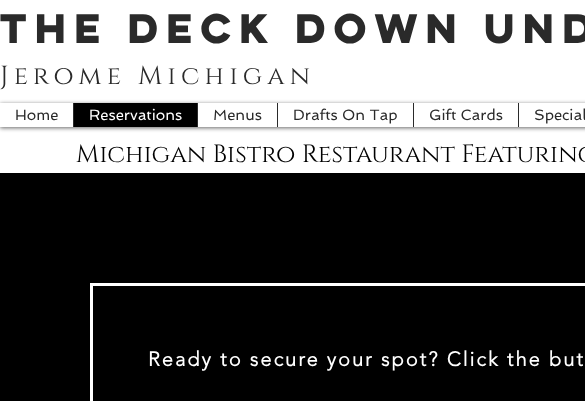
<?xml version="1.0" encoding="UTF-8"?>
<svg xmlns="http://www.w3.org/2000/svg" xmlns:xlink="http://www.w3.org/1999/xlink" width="585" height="401">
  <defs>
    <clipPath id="clip1"><path d="M 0 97 h 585 v 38 h -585 z m 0 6 h 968 v 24 h -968 z" clip-rule="evenodd" /></clipPath>
  </defs>
  <rect width="100%" height="100%" fill="#ffffff" />
  <g clip-path="url(#clip1)">
    <rect y="104" width="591" height="24" fill="#000000" fill-opacity="0.6" filter="blur(2px)" />
  </g>
  <rect x="74" y="103" width="123" height="24" fill="#000000" />
  <rect x="73" y="103" width="1" height="24" fill="#2a2a2a" />
  <rect x="197" y="103" width="1" height="24" fill="#2a2a2a" />
  <rect x="277" y="103" width="1" height="24" fill="#2a2a2a" />
  <rect x="413" y="103" width="1" height="24" fill="#2a2a2a" />
  <rect x="518" y="103" width="1" height="24" fill="#2a2a2a" />
  <rect y="173" width="585" height="228" fill="#000000" />
  <rect x="91.5" y="284.5" width="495" height="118" fill="none" stroke="#ffffff" stroke-width="3" />
  <text x="0" y="43" style="font-family: 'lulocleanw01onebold'; font-size: 37px; font-weight: bold; fill: #2a2a2a">The Deck Down Und</text>
  <text x="0" y="84" style="font-family: Cinzel; font-size: 26px; letter-spacing: 5.25px; fill: #2a2a2a">Jerome Michigan</text>
  <text x="15" y="120" style="font-family: Spinnaker; font-size: 15px; fill: #2a2a2a">Home</text>
  <text x="89" y="120" style="font-family: Spinnaker; font-size: 15px; fill: #ffffff">Reservations</text>
  <text x="213" y="120" style="font-family: Spinnaker; font-size: 15px; fill: #2a2a2a">Menus</text>
  <text x="293" y="120" style="font-family: Spinnaker; font-size: 15px; fill: #2a2a2a">Drafts On Tap</text>
  <text x="429" y="120" style="font-family: Spinnaker; font-size: 15px; fill: #2a2a2a">Gift Cards</text>
  <text x="534" y="120" style="font-family: Spinnaker; font-size: 15px; fill: #2a2a2a">Special</text>
  <text x="76" y="162" style="font-family: Cinzel; font-size: 25px; fill: #000000">Michigan Bistro Restaurant Featuring</text>
  <text x="148" y="366" style="font-family: 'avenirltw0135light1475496'; font-size: 20px; font-weight: bold; letter-spacing: 2px; fill: #ffffff">Ready to secure your spot? Click the but</text>
</svg>
